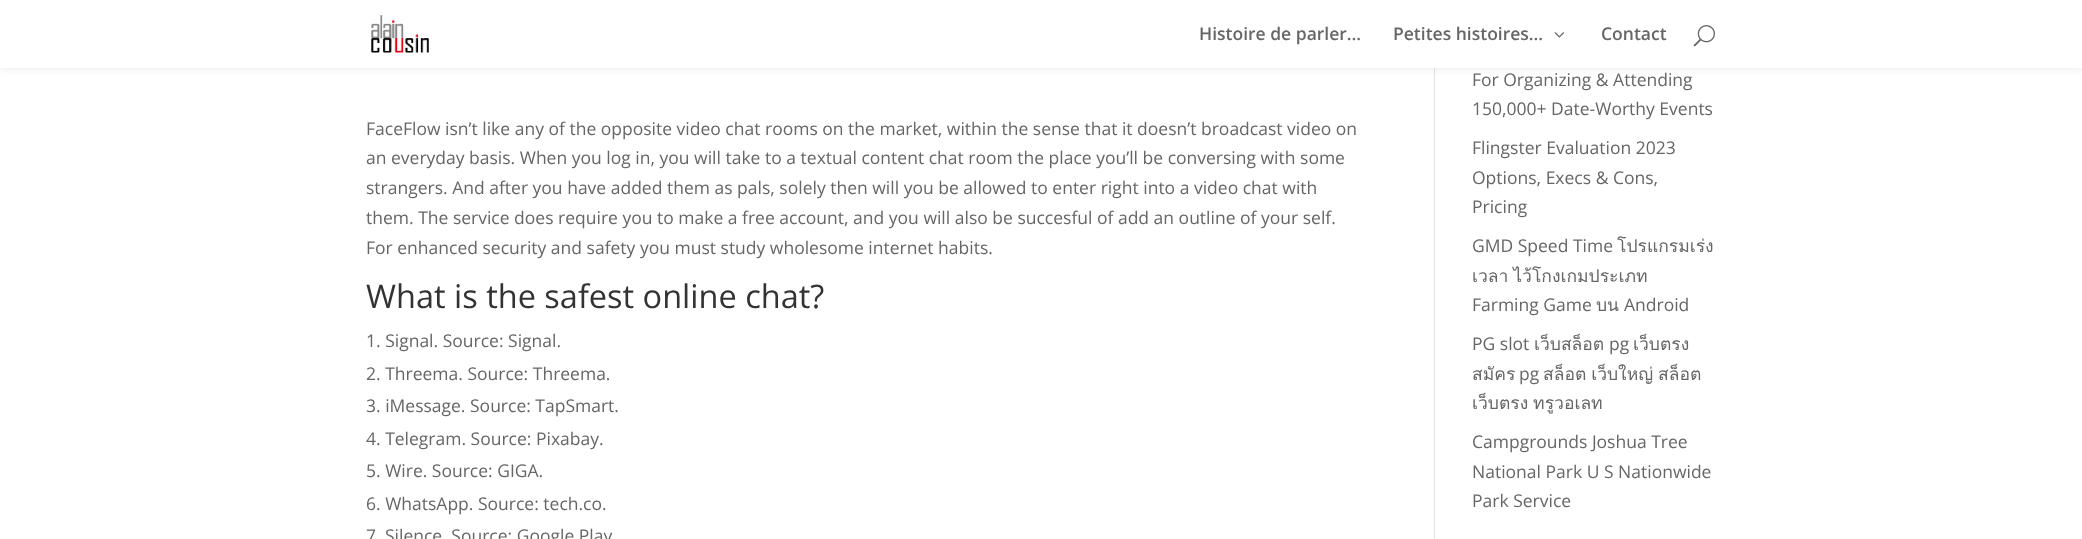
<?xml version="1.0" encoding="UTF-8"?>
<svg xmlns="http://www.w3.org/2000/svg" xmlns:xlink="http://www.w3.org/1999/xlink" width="2082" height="539">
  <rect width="100%" height="100%" fill="#ffffff" />
  <rect x="1434" y="68" width="1" height="471" fill="#e2e2e2" />
  <rect width="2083" height="68" fill="#000000" fill-opacity="0.1" filter="blur(4.5px)" />
  <rect width="2082" height="68" fill="#ffffff" />
  <image x="371" y="15" width="58" height="38" xlink:href="image1.png" />
  <image x="1554" y="32" width="10" height="6" xlink:href="image2.png" />
  <image x="1693" y="25" width="22" height="22" xlink:href="image3.png" />
  <text x="1199" y="40" style="font-family: Open Sans; font-size: 17.5px; font-weight: 600; fill: #666666">Histoire de parler…</text>
  <text x="1393" y="40" style="font-family: Open Sans; font-size: 17.5px; font-weight: 600; fill: #666666">Petites histoires…</text>
  <text x="1601" y="40" style="font-family: Open Sans; font-size: 17.5px; font-weight: 600; fill: #666666">Contact</text>
  <text x="366" y="135" style="font-family: Open Sans; font-size: 17.5px; fill: #666666">FaceFlow isn’t like any of the opposite video chat rooms on the market, within the sense that it doesn’t broadcast video on</text>
  <text x="366" y="164" style="font-family: Open Sans; font-size: 17.5px; fill: #666666">an everyday basis. When you log in, you will take to a textual content chat room the place you’ll be conversing with some</text>
  <text x="366" y="194" style="font-family: Open Sans; font-size: 17.5px; fill: #666666">strangers. And after you have added them as pals, solely then will you be allowed to enter right into a video chat with</text>
  <text x="366" y="224" style="font-family: Open Sans; font-size: 17.5px; fill: #666666">them. The service does require you to make a free account, and you will also be succesful of add an outline of your self.</text>
  <text x="366" y="254" style="font-family: Open Sans; font-size: 17.5px; fill: #666666">For enhanced security and safety you must study wholesome internet habits.</text>
  <text x="366" y="308" style="font-family: Open Sans; font-size: 32.5px; fill: #333333">What is the safest online chat?</text>
  <text x="366" y="347" style="font-family: Open Sans; font-size: 17.5px; fill: #666666">1. Signal. Source: Signal.</text>
  <text x="366" y="380" style="font-family: Open Sans; font-size: 17.5px; fill: #666666">2. Threema. Source: Threema.</text>
  <text x="366" y="412" style="font-family: Open Sans; font-size: 17.5px; fill: #666666">3. iMessage. Source: TapSmart.</text>
  <text x="366" y="445" style="font-family: Open Sans; font-size: 17.5px; fill: #666666">4. Telegram. Source: Pixabay.</text>
  <text x="366" y="477" style="font-family: Open Sans; font-size: 17.5px; fill: #666666">5. Wire. Source: GIGA.</text>
  <text x="366" y="510" style="font-family: Open Sans; font-size: 17.5px; fill: #666666">6. WhatsApp. Source: tech.co.</text>
  <text x="366" y="542" style="font-family: Open Sans; font-size: 17.5px; fill: #666666">7</text>
  <text x="385" y="542" style="font-family: Open Sans; font-size: 17.5px; fill: #666666">Silence. Source: Google Play</text>
  <text x="1472" y="86" style="font-family: Open Sans; font-size: 17.5px; fill: #666666">For Organizing &amp; Attending</text>
  <text x="1472" y="115" style="font-family: Open Sans; font-size: 17.5px; fill: #666666">150,000+ Date-Worthy Events</text>
  <text x="1472" y="154" style="font-family: Open Sans; font-size: 17.5px; fill: #666666">Flingster Evaluation 2023</text>
  <text x="1472" y="184" style="font-family: Open Sans; font-size: 17.5px; fill: #666666">Options, Execs &amp; Cons,</text>
  <text x="1472" y="213" style="font-family: Open Sans; font-size: 17.5px; fill: #666666">Pricing</text>
  <text x="1472" y="252" style="font-family: Open Sans; font-size: 17.5px; fill: #666666">GMD Speed Time</text>
  <text x="1617" y="252" style="font-family: Loma; font-size: 17.5px; fill: #666666">โปรแกรมเร่ง</text>
  <text x="1472" y="282" word-spacing="-1" style="font-family: Loma; font-size: 17.5px; fill: #666666">เวลา ไว้โกงเกมประเภท</text>
  <text x="1472" y="311" style="font-family: Open Sans; font-size: 17.5px; fill: #666666">Farming Game</text>
  <text x="1596" y="311" style="font-family: Loma; font-size: 17.5px; fill: #666666">บน</text>
  <text x="1624" y="311" style="font-family: Open Sans; font-size: 17.5px; fill: #666666">Android</text>
  <text x="1472" y="350" style="font-family: Open Sans; font-size: 17.5px; fill: #666666">PG slot</text>
  <text x="1534" y="350" style="font-family: Loma; font-size: 17.5px; fill: #666666">เว็บสล็อต</text>
  <text x="1609" y="350" style="font-family: Open Sans; font-size: 17.5px; fill: #666666">pg</text>
  <text x="1633" y="350" style="font-family: Loma; font-size: 17.5px; fill: #666666">เว็บตรง</text>
  <text x="1472" y="380" style="font-family: Loma; font-size: 17.5px; fill: #666666">สมัคร</text>
  <text x="1519" y="380" style="font-family: Open Sans; font-size: 17.5px; fill: #666666">pg</text>
  <text x="1543" y="380" word-spacing="-1" style="font-family: Loma; font-size: 17.5px; fill: #666666">สล็อต เว็บใหญ่ สล็อต</text>
  <text x="1472" y="409" word-spacing="-1" style="font-family: Loma; font-size: 17.5px; fill: #666666">เว็บตรง ทรูวอเลท</text>
  <text x="1472" y="448" style="font-family: Open Sans; font-size: 17.5px; fill: #666666">Campgrounds Joshua Tree</text>
  <text x="1472" y="478" style="font-family: Open Sans; font-size: 17.5px; fill: #666666">National Park U S Nationwide</text>
  <text x="1472" y="507" style="font-family: Open Sans; font-size: 17.5px; fill: #666666">Park Service</text>
</svg>
